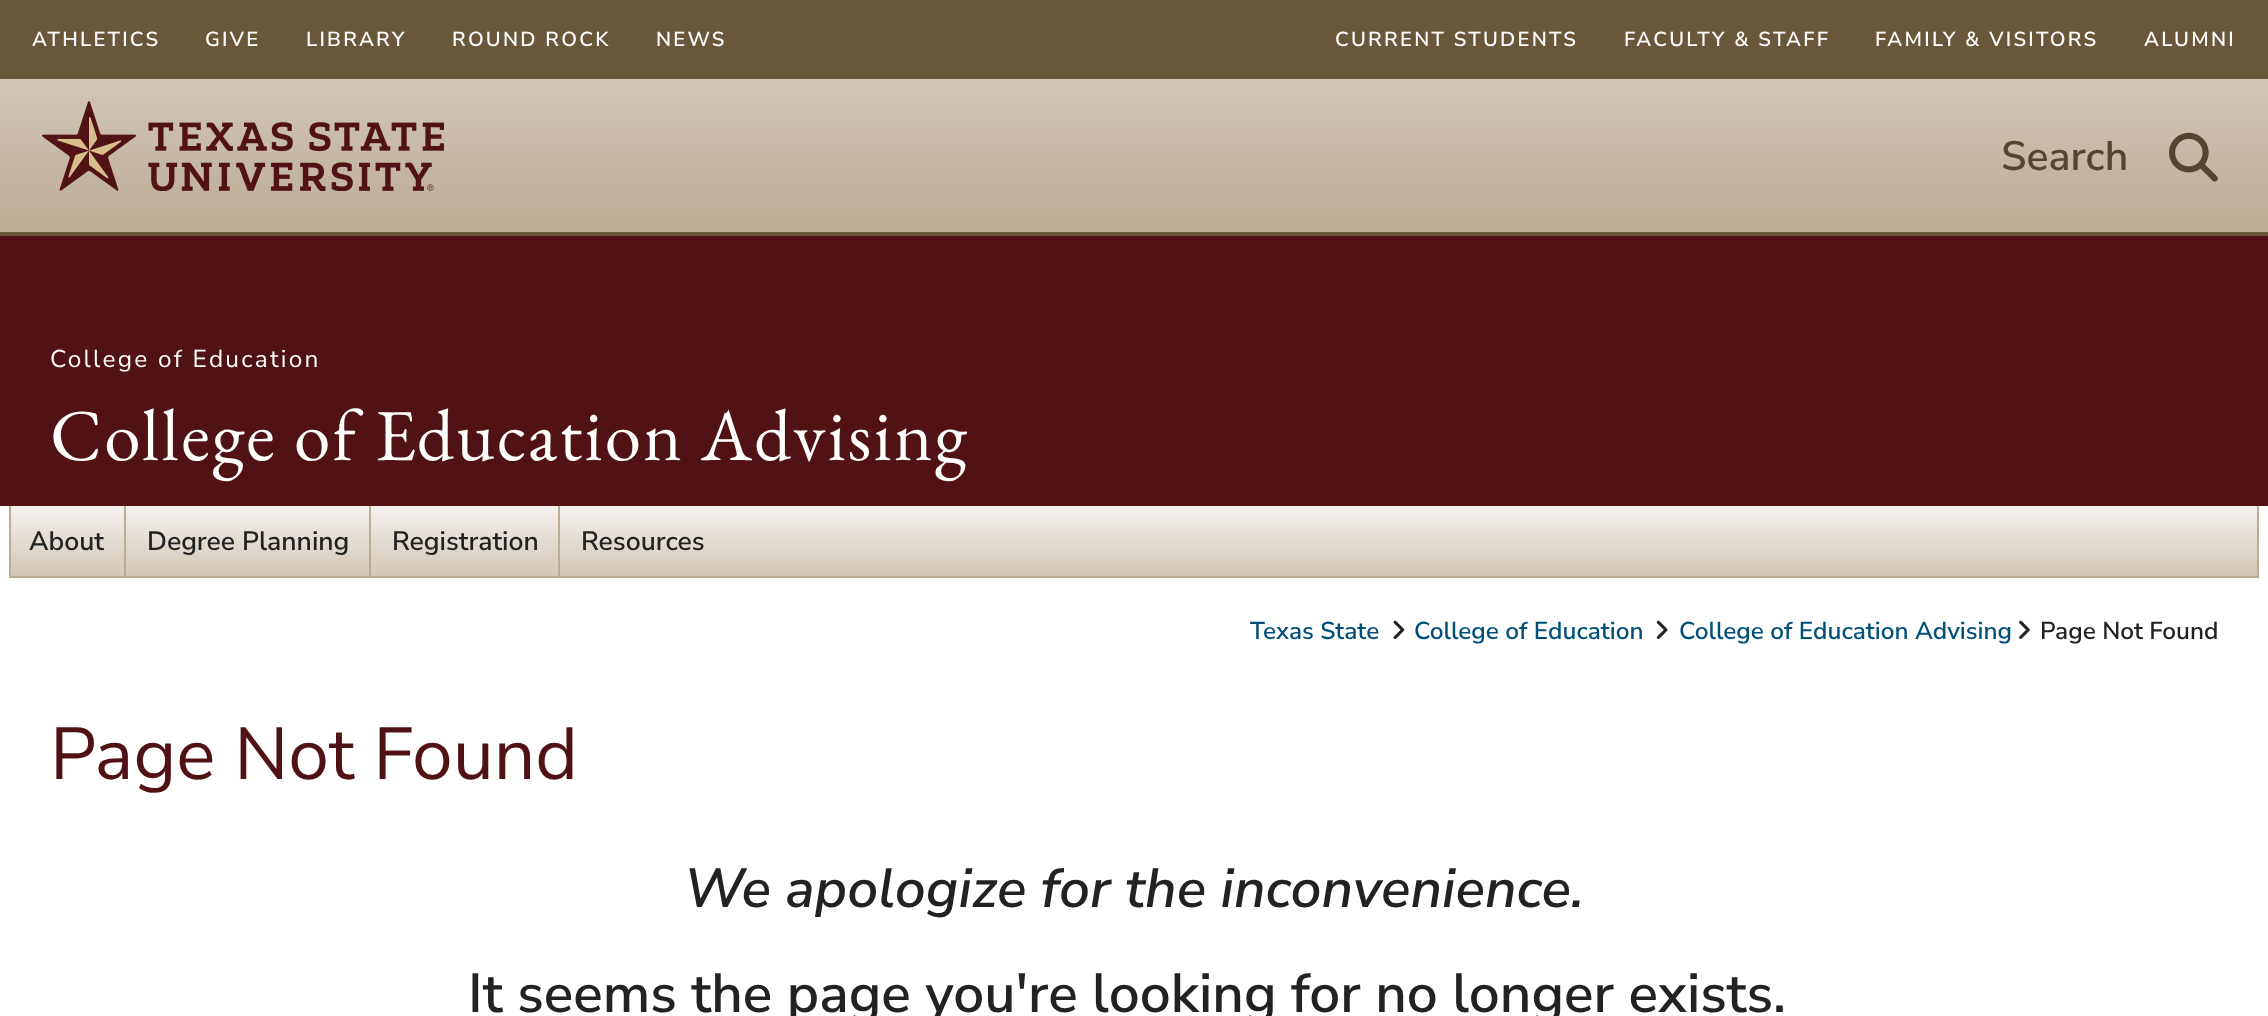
<?xml version="1.0" encoding="UTF-8"?>
<svg xmlns="http://www.w3.org/2000/svg" xmlns:xlink="http://www.w3.org/1999/xlink" width="2268" height="1016">
  <defs>
    <linearGradient id="g1" gradientUnits="userSpaceOnUse" x1="1134" y1="79" x2="1134" y2="232"><stop offset="0" stop-color="#d1c7b7" /><stop offset="1" stop-color="#bbab92" /></linearGradient>
    <linearGradient id="g2" gradientUnits="userSpaceOnUse" x1="1134" y1="506" x2="1134" y2="576"><stop offset="0" stop-color="#f5f1ee" /><stop offset="1" stop-color="#d1c7b7" /></linearGradient>
  </defs>
  <rect width="100%" height="100%" fill="#ffffff" />
  <rect width="2268" height="79" fill="#6a5638" />
  <rect y="79" width="2268" height="153" fill="url(#g1)" />
  <rect y="232" width="2268" height="4" fill="#6a5638" />
  <image x="42" y="101" width="402" height="90" xlink:href="image1.png" />
  <image x="2169" y="132" width="49" height="50" xlink:href="image2.png" />
  <rect y="236" width="2268" height="270" fill="#501214" />
  <rect x="11" y="506" width="2246" height="70" fill="url(#g2)" />
  <rect x="2257" y="506" width="2" height="70" fill="#bbab92" />
  <rect x="9" y="506" width="2" height="70" fill="#bbab92" />
  <rect x="9" y="576" width="2250" height="2" fill="#bbab92" />
  <rect x="124" y="506" width="2" height="70" fill="#bbab92" />
  <rect x="369" y="506" width="2" height="70" fill="#bbab92" />
  <rect x="558" y="506" width="2" height="70" fill="#bbab92" />
  <image x="1393" y="620" width="12" height="19" xlink:href="image3.png" />
  <image x="1656" y="620" width="12" height="19" xlink:href="image4.png" />
  <image x="2019" y="620" width="11" height="19" xlink:href="image5.png" />
  <text x="32" y="46" style="font-family: Nunito Sans; font-size: 20.3px; font-weight: 600; letter-spacing: 2.25px; fill: #ffffff">ATHLETICS</text>
  <text x="205" y="46" style="font-family: Nunito Sans; font-size: 20.3px; font-weight: 600; letter-spacing: 2.25px; fill: #ffffff">GIVE</text>
  <text x="306" y="46" style="font-family: Nunito Sans; font-size: 20.3px; font-weight: 600; letter-spacing: 2.25px; fill: #ffffff">LIBRARY</text>
  <text x="452" y="46" style="font-family: Nunito Sans; font-size: 20.3px; font-weight: 600; letter-spacing: 2.25px; fill: #ffffff">ROUND ROCK</text>
  <text x="656" y="46" style="font-family: Nunito Sans; font-size: 20.3px; font-weight: 600; letter-spacing: 2.25px; fill: #ffffff">NEWS</text>
  <text x="1335" y="46" style="font-family: Nunito Sans; font-size: 20.3px; font-weight: 600; letter-spacing: 2.25px; fill: #ffffff">CURRENT STUDENTS</text>
  <text x="1624" y="46" style="font-family: Nunito Sans; font-size: 20.3px; font-weight: 600; letter-spacing: 2.25px; fill: #ffffff">FACULTY &amp; STAFF</text>
  <text x="1875" y="46" style="font-family: Nunito Sans; font-size: 20.3px; font-weight: 600; letter-spacing: 2.25px; fill: #ffffff">FAMILY &amp; VISITORS</text>
  <text x="2144" y="46" style="font-family: Nunito Sans; font-size: 20.3px; font-weight: 600; letter-spacing: 2.25px; fill: #ffffff">ALUMNI</text>
  <text x="2001" y="170" style="font-family: Nunito Sans; font-size: 41px; font-weight: 600; fill: #55452d">Search</text>
  <text x="50" y="367" style="font-family: Nunito Sans; font-size: 24.4px; letter-spacing: 2.25px; fill: #ffffff">College of Education</text>
  <text x="50" y="460" style="font-family: EB Garamond; font-size: 73.25px; letter-spacing: 2.25px; fill: #ffffff">College of Education Advising</text>
  <text x="29" y="550" style="font-family: Nunito Sans; font-size: 26.5px; font-weight: 600; fill: #222222">About</text>
  <text x="147" y="550" style="font-family: Nunito Sans; font-size: 26.5px; font-weight: 600; fill: #222222">Degree Planning</text>
  <text x="392" y="550" style="font-family: Nunito Sans; font-size: 26.5px; font-weight: 600; fill: #222222">Registration</text>
  <text x="581" y="550" style="font-family: Nunito Sans; font-size: 26.5px; font-weight: 600; fill: #222222">Resources</text>
  <text x="1250" y="639" style="font-family: Nunito Sans; font-size: 24.4px; font-weight: 600; fill: #00507a">Texas State</text>
  <text x="1414" y="639" style="font-family: Nunito Sans; font-size: 24.4px; font-weight: 600; fill: #00507a">College of Education</text>
  <text x="1679" y="639" style="font-family: Nunito Sans; font-size: 24.4px; font-weight: 600; fill: #00507a">College of Education Advising</text>
  <text x="2040" y="639" style="font-family: Nunito Sans; font-size: 24.4px; font-weight: 600; fill: #222222">Page Not Found</text>
  <text x="50" y="779" style="font-family: Nunito Sans; font-size: 73.25px; fill: #501214">Page Not Found</text>
  <text x="684" y="907" style="font-family: Nunito Sans; font-size: 54.9px; font-weight: 600; font-style: italic; fill: #222222">We apologize for the inconvenience.</text>
  <text x="468" y="1012" style="font-family: Nunito Sans; font-size: 54.9px; font-weight: 600; fill: #222222">It seems the page you're looking for no longer exists.</text>
</svg>
